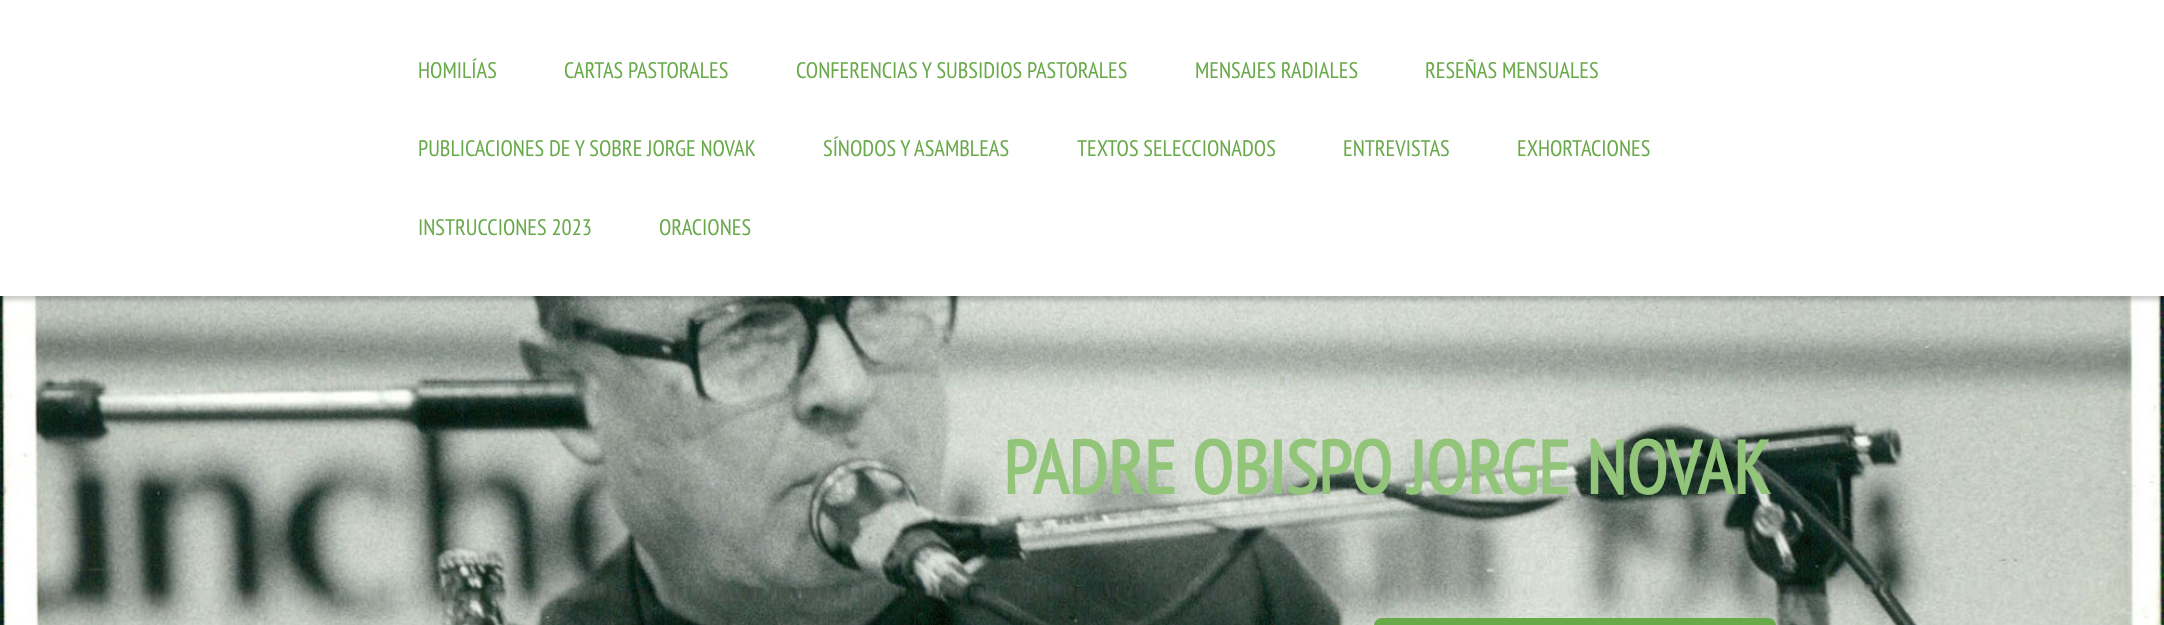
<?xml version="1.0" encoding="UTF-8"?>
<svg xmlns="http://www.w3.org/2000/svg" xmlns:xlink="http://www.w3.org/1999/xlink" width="2164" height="625">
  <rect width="100%" height="100%" fill="#ffffff" />
  <image x="0" y="296" width="2164" height="329" xlink:href="image1.png" />
  <rect x="-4" y="-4" width="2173" height="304" fill="#000000" fill-opacity="0.2" filter="blur(2px)" />
  <rect width="2164" height="296" fill="#ffffff" />
  <path d="M 1382 618 h 386 c 4.5 0 8 3.5 8 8 v 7 h -402 v -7 c 0 -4.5 3.5 -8 8 -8 z" fill="#68a94a" />
  <text x="418" y="78" style="font-family: PT Sans Narrow; font-size: 22.5px; fill: #68a94a">HOMILÍAS</text>
  <text x="564" y="78" style="font-family: PT Sans Narrow; font-size: 22.5px; fill: #68a94a">CARTAS PASTORALES</text>
  <text x="796" y="78" style="font-family: PT Sans Narrow; font-size: 22.5px; fill: #68a94a">CONFERENCIAS Y SUBSIDIOS PASTORALES</text>
  <text x="1195" y="78" style="font-family: PT Sans Narrow; font-size: 22.5px; fill: #68a94a">MENSAJES RADIALES</text>
  <text x="1425" y="78" style="font-family: PT Sans Narrow; font-size: 22.5px; fill: #68a94a">RESEÑAS MENSUALES</text>
  <text x="418" y="156" style="font-family: PT Sans Narrow; font-size: 22.5px; fill: #68a94a">PUBLICACIONES DE Y SOBRE JORGE NOVAK</text>
  <text x="823" y="156" style="font-family: PT Sans Narrow; font-size: 22.5px; fill: #68a94a">SÍNODOS Y</text>
  <text x="914" y="156" style="font-family: PT Sans Narrow; font-size: 22.5px; fill: #68a94a">ASAMBLEAS</text>
  <text x="1077" y="156" style="font-family: PT Sans Narrow; font-size: 22.5px; fill: #68a94a">TEXTOS SELECCIONADOS</text>
  <text x="1343" y="156" style="font-family: PT Sans Narrow; font-size: 22.5px; fill: #68a94a">ENTREVISTAS</text>
  <text x="1517" y="156" style="font-family: PT Sans Narrow; font-size: 22.5px; fill: #68a94a">EXHORTACIONES</text>
  <text x="418" y="235" style="font-family: PT Sans Narrow; font-size: 22.5px; fill: #68a94a">INSTRUCCIONES 2023</text>
  <text x="659" y="235" style="font-family: PT Sans Narrow; font-size: 22.5px; fill: #68a94a">ORACIONES</text>
  <text x="1003" y="494" style="font-family: PT Sans Narrow; font-size: 75px; font-weight: bold; fill: #92c57a">PADRE OBISPO JORGE NOVAK</text>
</svg>
